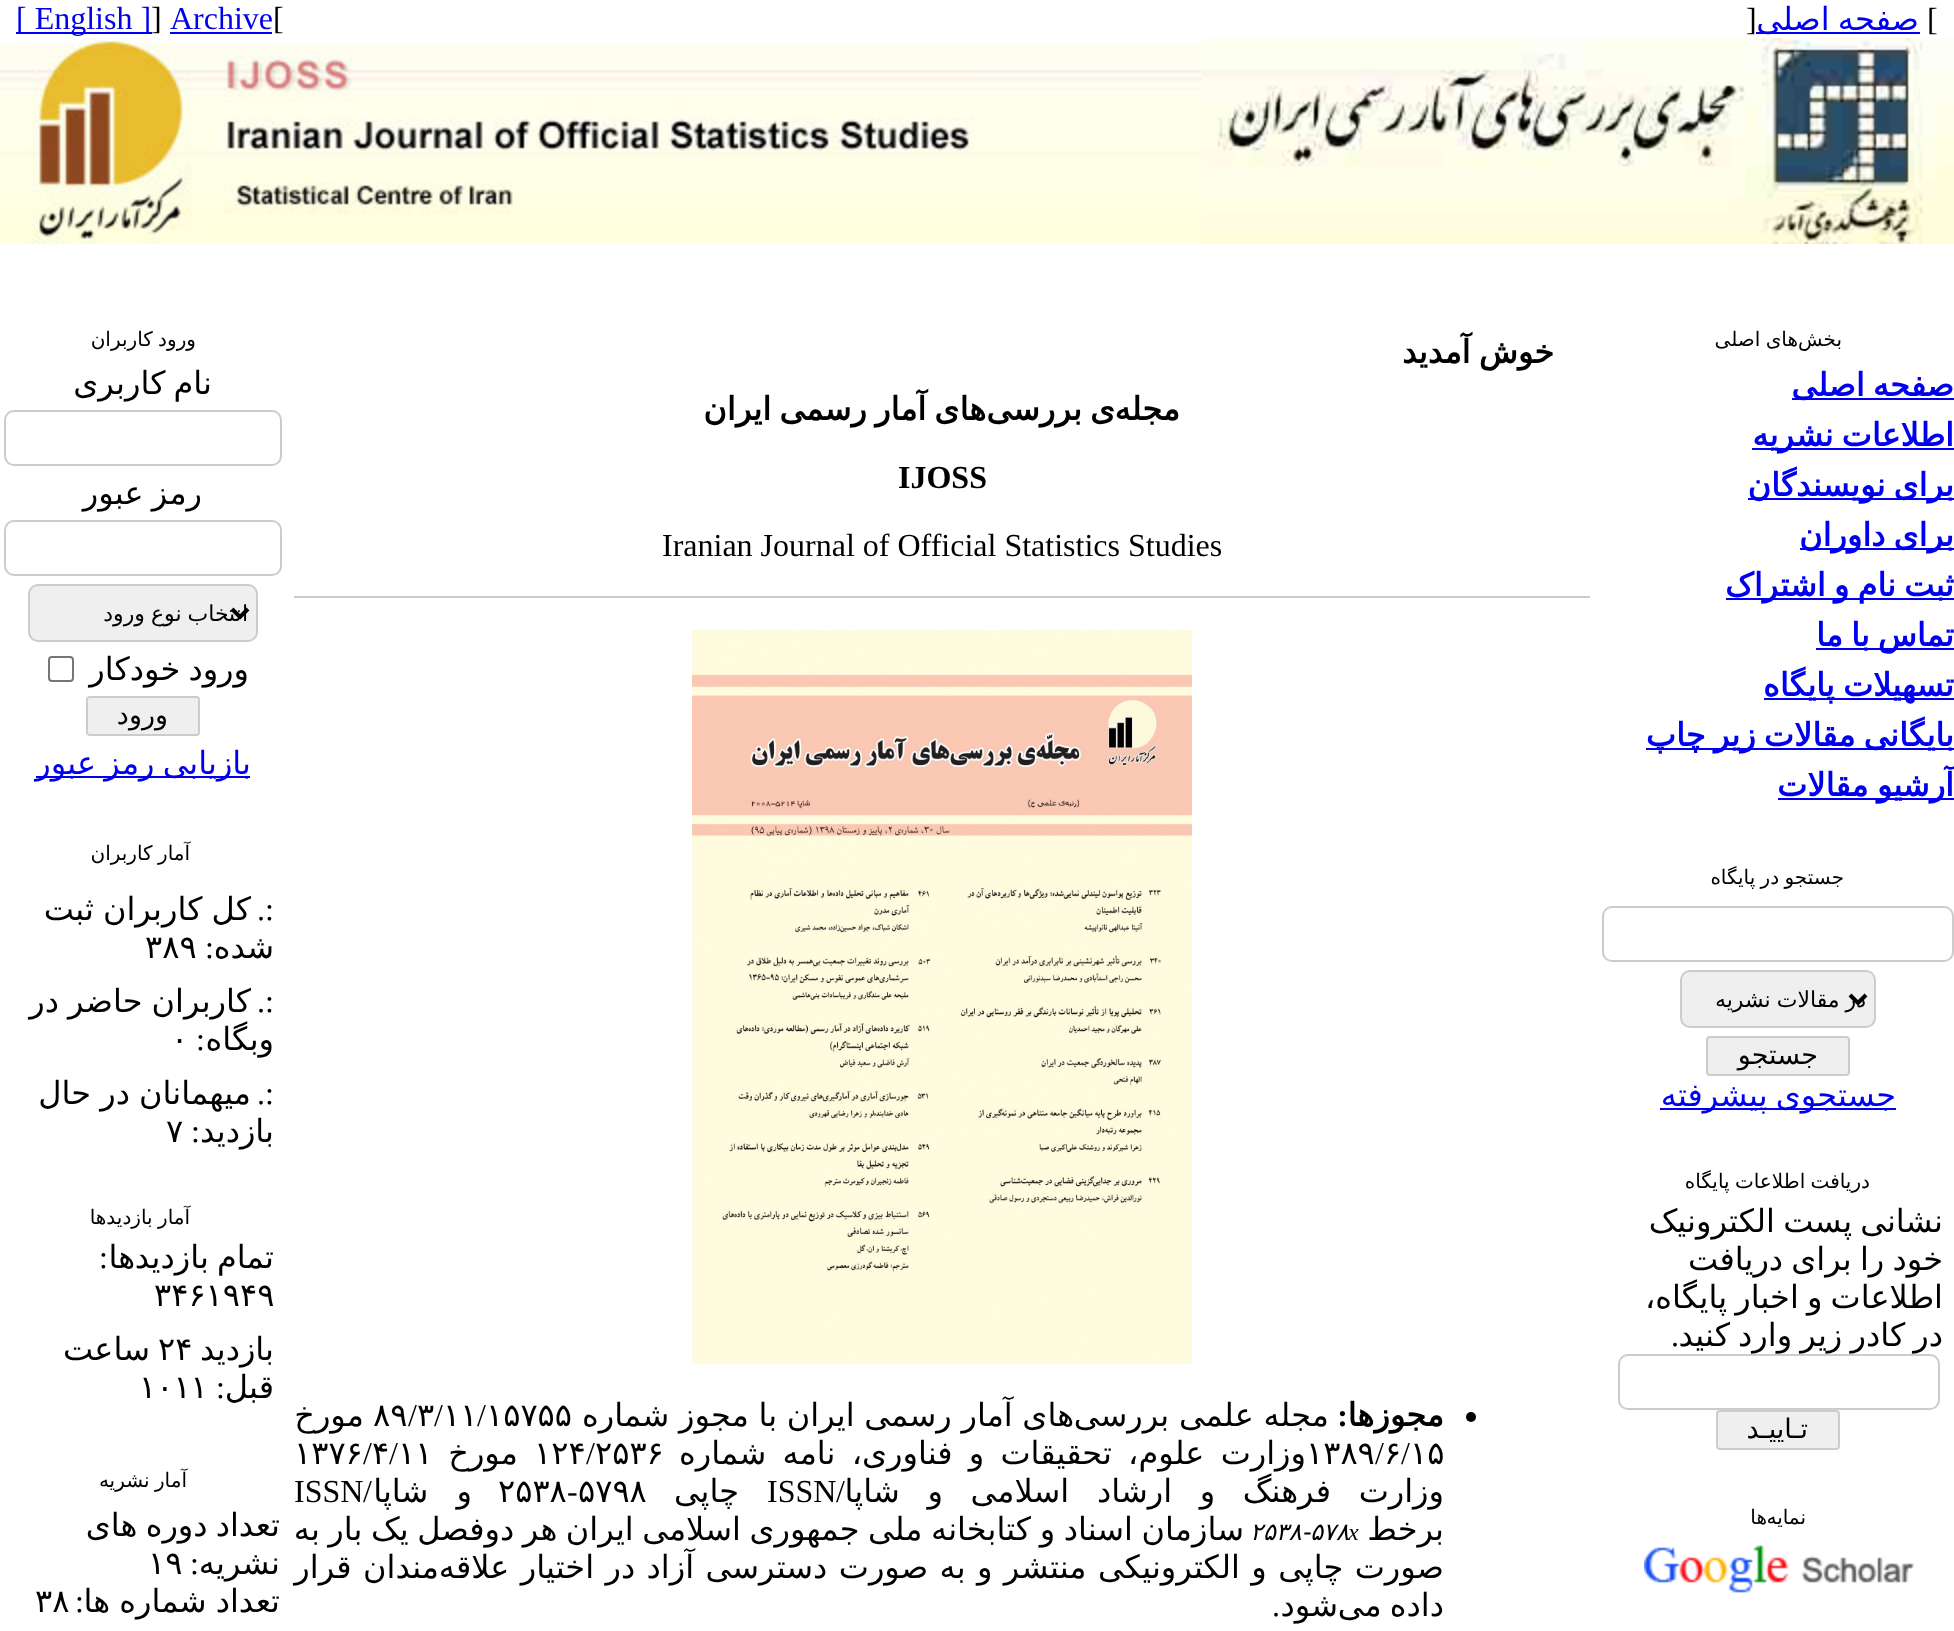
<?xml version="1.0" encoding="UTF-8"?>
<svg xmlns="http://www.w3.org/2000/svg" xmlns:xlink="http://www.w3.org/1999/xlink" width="1954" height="1631">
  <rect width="100%" height="100%" fill="#ffffff" />
  <rect x="1756" y="32" width="164" height="2" fill="#0000ee" />
  <rect x="170" y="32" width="102" height="2" fill="#0000ee" />
  <rect x="16" y="32" width="136" height="2" fill="#0000ee" />
  <image x="1202" y="38" width="752" height="206" xlink:href="image1.png" />
  <image x="982" y="43" width="220" height="201" xlink:href="image2.png" />
  <image x="0" y="43" width="982" height="201" xlink:href="image3.png" />
  <image x="31" y="38" width="945" height="206" xlink:href="image4.png" />
  <rect x="1792" y="398" width="162" height="2" fill="#0000ee" />
  <rect x="1752" y="448" width="202" height="2" fill="#0000ee" />
  <rect x="1748" y="498" width="206" height="2" fill="#0000ee" />
  <rect x="1800" y="548" width="154" height="2" fill="#0000ee" />
  <rect x="1726" y="598" width="228" height="2" fill="#0000ee" />
  <rect x="1816" y="648" width="138" height="2" fill="#0000ee" />
  <rect x="1764" y="698" width="190" height="2" fill="#0000ee" />
  <rect x="1646" y="748" width="308" height="2" fill="#0000ee" />
  <rect x="1778" y="798" width="176" height="2" fill="#0000ee" />
  <rect x="1603" y="907" width="350" height="54" rx="9" fill="none" stroke="#cccccc" stroke-width="2" />
  <rect x="1681" y="971" width="194" height="56" rx="9" fill="#efefef" stroke="#cccccc" stroke-width="2" />
  <path d="M 1850 995 l 8 8 l 8 -8" fill="none" stroke="#000000" stroke-width="4" />
  <rect x="1707" y="1037" width="142" height="38" rx="3" fill="#efefef" stroke="#cccccc" stroke-width="2" />
  <rect x="1660" y="1108" width="236" height="2" fill="#0000ee" />
  <rect x="1619" y="1355" width="320" height="54" rx="9" fill="none" stroke="#cccccc" stroke-width="2" />
  <rect x="1717" y="1411" width="122" height="38" rx="3" fill="#efefef" stroke="#cccccc" stroke-width="2" />
  <image x="1644" y="1545" width="270" height="48" xlink:href="image5.png" />
  <rect x="294" y="596" width="1296" height="2" fill="#cccccc" />
  <image x="692" y="630" width="500" height="734" xlink:href="image6.png" />
  <circle cx="1471" cy="1417" r="5" fill="#000000" />
  <rect x="5" y="411" width="276" height="54" rx="9" fill="none" stroke="#cccccc" stroke-width="2" />
  <rect x="5" y="521" width="276" height="54" rx="9" fill="none" stroke="#cccccc" stroke-width="2" />
  <rect x="29" y="585" width="228" height="56" rx="9" fill="#efefef" stroke="#cccccc" stroke-width="2" />
  <path d="M 232 609 l 8 8 l 8 -8" fill="none" stroke="#000000" stroke-width="4" />
  <rect x="49" y="657" width="24" height="24" rx="3" fill="none" stroke="#767676" stroke-width="2" />
  <rect x="87" y="697" width="112" height="38" rx="3" fill="#efefef" stroke="#cccccc" stroke-width="2" />
  <rect x="36" y="776" width="214" height="2" fill="#0000ee" />
  <text x="1927" y="30" style="font-family: Liberation Serif; font-size: 32px; fill: #000000">[</text>
  <text x="1919" y="30" word-spacing="-2" style="font-family: DejaVu Sans; font-size: 32px; direction: rtl; fill: #0000ee">صفحه اصلی</text>
  <text x="1746" y="30" style="font-family: Liberation Serif; font-size: 32px; fill: #000000">]</text>
  <text x="273" y="29" style="font-family: Liberation Serif; font-size: 32px; fill: #000000">[</text>
  <text x="170" y="29" style="font-family: Liberation Serif; font-size: 32px; fill: #0000ee">Archive</text>
  <text x="151" y="29" style="font-family: Liberation Serif; font-size: 32px; fill: #000000">]</text>
  <text x="16" y="29" style="font-family: Liberation Serif; font-size: 32px; fill: #0000ee">[ English ]</text>
  <text x="1842" y="346" style="font-family: DejaVu Sans; font-size: 20px; direction: rtl; fill: #000000">بخش</text>
  <text x="1798" y="346" word-spacing="-1" style="font-family: DejaVu Sans; font-size: 20px; direction: rtl; fill: #000000">های اصلی</text>
  <text x="1954" y="396" word-spacing="-2" style="font-family: DejaVu Sans; font-size: 32px; font-weight: bold; direction: rtl; fill: #0000ee">صفحه اصلی</text>
  <text x="1954" y="446" word-spacing="-2" style="font-family: DejaVu Sans; font-size: 32px; font-weight: bold; direction: rtl; fill: #0000ee">اطلاعات نشریه</text>
  <text x="1954" y="496" word-spacing="-2" style="font-family: DejaVu Sans; font-size: 32px; font-weight: bold; direction: rtl; fill: #0000ee">برای نویسندگان</text>
  <text x="1954" y="546" word-spacing="-2" style="font-family: DejaVu Sans; font-size: 32px; font-weight: bold; direction: rtl; fill: #0000ee">برای داوران</text>
  <text x="1954" y="596" word-spacing="-2" style="font-family: DejaVu Sans; font-size: 32px; font-weight: bold; direction: rtl; fill: #0000ee">ثبت نام و اشتراک</text>
  <text x="1954" y="646" word-spacing="-2" style="font-family: DejaVu Sans; font-size: 32px; font-weight: bold; direction: rtl; fill: #0000ee">تماس با ما</text>
  <text x="1954" y="696" word-spacing="-2" style="font-family: DejaVu Sans; font-size: 32px; font-weight: bold; direction: rtl; fill: #0000ee">تسهیلات پایگاه</text>
  <text x="1954" y="746" word-spacing="-2" style="font-family: DejaVu Sans; font-size: 32px; font-weight: bold; direction: rtl; fill: #0000ee">بایگانی مقالات زیر چاپ</text>
  <text x="1954" y="796" word-spacing="-2" style="font-family: DejaVu Sans; font-size: 32px; font-weight: bold; direction: rtl; fill: #0000ee">آرشیو مقالات</text>
  <text x="1844" y="884" word-spacing="-1" style="font-family: DejaVu Sans; font-size: 20px; direction: rtl; fill: #000000">جستجو در پایگاه</text>
  <text x="1866" y="1007" word-spacing="-1" style="font-family: DejaVu Sans; font-size: 22px; direction: rtl; fill: #000000">در مقالات نشریه</text>
  <text x="1818" y="1064" style="font-family: DejaVu Sans; font-size: 27px; direction: rtl; fill: #000000">جستجو</text>
  <text x="1896" y="1106" word-spacing="-2" style="font-family: DejaVu Sans; font-size: 32px; direction: rtl; fill: #0000ee">جستجوی پیشرفته</text>
  <text x="1870" y="1188" word-spacing="-1" style="font-family: DejaVu Sans; font-size: 20px; direction: rtl; fill: #000000">دریافت اطلاعات پایگاه</text>
  <text x="1943" y="1232" word-spacing="-2" style="font-family: DejaVu Sans; font-size: 32px; direction: rtl; fill: #000000">نشانی پست الكترونیک</text>
  <text x="1943" y="1270" word-spacing="-2" style="font-family: DejaVu Sans; font-size: 32px; direction: rtl; fill: #000000">خود را برای دریافت</text>
  <text x="1943" y="1308" word-spacing="-2" style="font-family: DejaVu Sans; font-size: 32px; direction: rtl; fill: #000000">اطلاعات و اخبار پایگاه،</text>
  <text x="1943" y="1346" word-spacing="-2" style="font-family: DejaVu Sans; font-size: 32px; direction: rtl; fill: #000000">در كادر زیر وارد كنید</text>
  <text x="1679" y="1346" style="font-family: Liberation Serif; font-size: 32px; direction: rtl; fill: #000000">.</text>
  <text x="1808" y="1438" style="font-family: DejaVu Sans; font-size: 27px; direction: rtl; fill: #000000">تـاییـد</text>
  <text x="1806" y="1524" style="font-family: DejaVu Sans; font-size: 20px; direction: rtl; fill: #000000">نمایه</text>
  <text x="1767" y="1524" style="font-family: DejaVu Sans; font-size: 20px; direction: rtl; fill: #000000">ها</text>
  <text x="1554" y="363" word-spacing="-2" style="font-family: DejaVu Sans; font-size: 32px; font-weight: bold; direction: rtl; fill: #000000">خوش آمدید</text>
  <text x="1180" y="420" style="font-family: DejaVu Sans; font-size: 32px; font-weight: bold; direction: rtl; fill: #000000">مجله</text>
  <text x="1115" y="420" word-spacing="-2" style="font-family: DejaVu Sans; font-size: 32px; font-weight: bold; direction: rtl; fill: #000000">ی بررسی</text>
  <text x="986" y="420" word-spacing="-2" style="font-family: DejaVu Sans; font-size: 32px; font-weight: bold; direction: rtl; fill: #000000">های آمار رسمی ایران</text>
  <text x="898" y="488" style="font-family: Liberation Serif; font-size: 32px; font-weight: bold; fill: #000000">IJOSS</text>
  <text x="662" y="556" style="font-family: Liberation Serif; font-size: 32px; fill: #000000">Iranian Journal of Official Statistics Studies</text>
  <text x="1444" y="1426" style="font-family: DejaVu Sans; font-size: 32px; font-weight: bold; direction: rtl; fill: #000000">مجوزها</text>
  <text x="1348" y="1426" style="font-family: Liberation Serif; font-size: 32px; font-weight: bold; direction: rtl; fill: #000000">:</text>
  <text x="1329" y="1426" word-spacing="-0.5" style="font-family: DejaVu Sans; font-size: 32px; direction: rtl; fill: #000000">مجله علمی بررسی</text>
  <text x="1074" y="1426" word-spacing="-0.5" style="font-family: DejaVu Sans; font-size: 32px; direction: rtl; fill: #000000">های آمار رسمی ایران با مجوز شماره</text>
  <text x="486" y="1426" style="font-family: DejaVu Sans; font-size: 32px; fill: #000000">۱۵۷۵۵</text>
  <text x="477" y="1426" style="font-family: Liberation Serif; font-size: 32px; fill: #000000">/</text>
  <text x="443" y="1426" style="font-family: DejaVu Sans; font-size: 32px; fill: #000000">۱۱</text>
  <text x="434" y="1426" style="font-family: Liberation Serif; font-size: 32px; fill: #000000">/</text>
  <text x="417" y="1426" style="font-family: DejaVu Sans; font-size: 32px; fill: #000000">۳</text>
  <text x="408" y="1426" style="font-family: Liberation Serif; font-size: 32px; fill: #000000">/</text>
  <text x="373" y="1426" style="font-family: DejaVu Sans; font-size: 32px; fill: #000000">۸۹</text>
  <text x="364" y="1426" style="font-family: DejaVu Sans; font-size: 32px; direction: rtl; fill: #000000">مورخ</text>
  <text x="1410" y="1464" style="font-family: DejaVu Sans; font-size: 32px; fill: #000000">۱۵</text>
  <text x="1401" y="1464" style="font-family: Liberation Serif; font-size: 32px; fill: #000000">/</text>
  <text x="1384" y="1464" style="font-family: DejaVu Sans; font-size: 32px; fill: #000000">۶</text>
  <text x="1375" y="1464" style="font-family: Liberation Serif; font-size: 32px; fill: #000000">/</text>
  <text x="1306" y="1464" style="font-family: DejaVu Sans; font-size: 32px; fill: #000000">۱۳۸۹</text>
  <text x="1306" y="1464" word-spacing="6" style="font-family: DejaVu Sans; font-size: 32px; direction: rtl; fill: #000000">وزارت علوم، تحقیقات و فناوری، نامه شماره</text>
  <text x="595" y="1464" style="font-family: DejaVu Sans; font-size: 32px; fill: #000000">۲۵۳۶</text>
  <text x="586" y="1464" style="font-family: Liberation Serif; font-size: 32px; fill: #000000">/</text>
  <text x="534" y="1464" style="font-family: DejaVu Sans; font-size: 32px; fill: #000000">۱۲۴</text>
  <text x="518" y="1464" style="font-family: DejaVu Sans; font-size: 32px; direction: rtl; fill: #000000">مورخ</text>
  <text x="398" y="1464" style="font-family: DejaVu Sans; font-size: 32px; fill: #000000">۱۱</text>
  <text x="389" y="1464" style="font-family: Liberation Serif; font-size: 32px; fill: #000000">/</text>
  <text x="372" y="1464" style="font-family: DejaVu Sans; font-size: 32px; fill: #000000">۴</text>
  <text x="363" y="1464" style="font-family: Liberation Serif; font-size: 32px; fill: #000000">/</text>
  <text x="294" y="1464" style="font-family: DejaVu Sans; font-size: 32px; fill: #000000">۱۳۷۶</text>
  <text x="1444" y="1502" word-spacing="17.5" style="font-family: DejaVu Sans; font-size: 32px; direction: rtl; fill: #000000">وزارت فرهنگ و ارشاد اسلامی و شاپا</text>
  <text x="845" y="1502" style="font-family: Liberation Serif; font-size: 32px; direction: rtl; fill: #000000">/</text>
  <text x="767" y="1502" style="font-family: Liberation Serif; font-size: 32px; fill: #000000">ISSN</text>
  <text x="739" y="1502" style="font-family: DejaVu Sans; font-size: 32px; direction: rtl; fill: #000000">چاپی</text>
  <text x="578" y="1502" style="font-family: DejaVu Sans; font-size: 32px; fill: #000000">۵۷۹۸</text>
  <text x="567" y="1502" style="font-family: Liberation Serif; font-size: 32px; fill: #000000">-</text>
  <text x="498" y="1502" style="font-family: DejaVu Sans; font-size: 32px; fill: #000000">۲۵۳۸</text>
  <text x="472" y="1502" word-spacing="18" style="font-family: DejaVu Sans; font-size: 32px; direction: rtl; fill: #000000">و شاپا</text>
  <text x="372" y="1502" style="font-family: Liberation Serif; font-size: 32px; direction: rtl; fill: #000000">/</text>
  <text x="294" y="1502" style="font-family: Liberation Serif; font-size: 32px; fill: #000000">ISSN</text>
  <text x="1444" y="1540" style="font-family: DejaVu Sans; font-size: 32px; direction: rtl; fill: #000000">برخط</text>
  <text x="1348" y="1540" style="font-family: Liberation Serif; font-size: 24px; font-style: italic; fill: #000000">x</text>
  <text x="1250" y="1540" style="font-family: DejaVu Sans; font-size: 24px; font-style: italic; fill: #000000">۲۵۳۸-۵۷۸</text>
  <text x="1244" y="1540" word-spacing="-1.6" style="font-family: DejaVu Sans; font-size: 32px; direction: rtl; fill: #000000">سازمان اسناد و کتابخانه ملی جمهوری اسلامی ایران هر دوفصل یک بار به</text>
  <text x="1444" y="1578" word-spacing="1.25" style="font-family: DejaVu Sans; font-size: 32px; direction: rtl; fill: #000000">صورت چاپی و الکترونیکی منتشر و به صورت دسترسی آزاد در اختیار علاقه</text>
  <text x="439" y="1578" word-spacing="1.25" style="font-family: DejaVu Sans; font-size: 32px; direction: rtl; fill: #000000">مندان قرار</text>
  <text x="1444" y="1616" word-spacing="-2" style="font-family: DejaVu Sans; font-size: 32px; direction: rtl; fill: #000000">داده می</text>
  <text x="1338" y="1616" style="font-family: DejaVu Sans; font-size: 32px; direction: rtl; fill: #000000">شود</text>
  <text x="1280" y="1616" style="font-family: Liberation Serif; font-size: 32px; direction: rtl; fill: #000000">.</text>
  <text x="196" y="346" word-spacing="-1" style="font-family: DejaVu Sans; font-size: 20px; direction: rtl; fill: #000000">ورود کاربران</text>
  <text x="212" y="394" word-spacing="-2" style="font-family: DejaVu Sans; font-size: 32px; direction: rtl; fill: #000000">نام کاربری</text>
  <text x="202" y="504" word-spacing="-2" style="font-family: DejaVu Sans; font-size: 32px; direction: rtl; fill: #000000">رمز عبور</text>
  <text x="248" y="621" word-spacing="-1" style="font-family: DejaVu Sans; font-size: 22px; direction: rtl; fill: #000000">انتخاب نوع ورود</text>
  <text x="249" y="680" word-spacing="-2" style="font-family: DejaVu Sans; font-size: 32px; direction: rtl; fill: #000000">ورود خودکار</text>
  <text x="168" y="724" style="font-family: DejaVu Sans; font-size: 27px; direction: rtl; fill: #000000">ورود</text>
  <text x="251" y="774" word-spacing="-2" style="font-family: DejaVu Sans; font-size: 32px; direction: rtl; fill: #0000ee">بازیابی رمز عبور</text>
  <text x="190" y="860" word-spacing="-1" style="font-family: DejaVu Sans; font-size: 20px; direction: rtl; fill: #000000">آمار کاربران</text>
  <text x="274" y="920" style="font-family: Liberation Serif; font-size: 32px; direction: rtl; fill: #000000">:.</text>
  <text x="251" y="920" word-spacing="-1" style="font-family: DejaVu Sans; font-size: 32px; direction: rtl; fill: #000000">کل کاربران ثبت</text>
  <text x="274" y="958" style="font-family: DejaVu Sans; font-size: 32px; direction: rtl; fill: #000000">شده</text>
  <text x="214" y="958" style="font-family: Liberation Serif; font-size: 32px; direction: rtl; fill: #000000">:</text>
  <text x="145" y="958" style="font-family: DejaVu Sans; font-size: 32px; fill: #000000">۳۸۹</text>
  <text x="274" y="1012" style="font-family: Liberation Serif; font-size: 32px; direction: rtl; fill: #000000">:.</text>
  <text x="251" y="1012" word-spacing="-1" style="font-family: DejaVu Sans; font-size: 32px; direction: rtl; fill: #000000">کاربران حاضر در</text>
  <text x="274" y="1050" style="font-family: DejaVu Sans; font-size: 32px; direction: rtl; fill: #000000">وبگاه</text>
  <text x="205" y="1050" style="font-family: Liberation Serif; font-size: 32px; direction: rtl; fill: #000000">:</text>
  <text x="171" y="1050" style="font-family: DejaVu Sans; font-size: 32px; fill: #000000">۰</text>
  <text x="274" y="1104" style="font-family: Liberation Serif; font-size: 32px; direction: rtl; fill: #000000">:.</text>
  <text x="251" y="1104" word-spacing="-1" style="font-family: DejaVu Sans; font-size: 32px; direction: rtl; fill: #000000">میهمانان در حال</text>
  <text x="274" y="1142" style="font-family: DejaVu Sans; font-size: 32px; direction: rtl; fill: #000000">بازدید</text>
  <text x="200" y="1142" style="font-family: Liberation Serif; font-size: 32px; direction: rtl; fill: #000000">:</text>
  <text x="166" y="1142" style="font-family: DejaVu Sans; font-size: 32px; fill: #000000">۷</text>
  <text x="190" y="1224" word-spacing="-1" style="font-family: DejaVu Sans; font-size: 20px; direction: rtl; fill: #000000">آمار بازدیدها</text>
  <text x="274" y="1268" word-spacing="-2" style="font-family: DejaVu Sans; font-size: 32px; direction: rtl; fill: #000000">تمام بازدید</text>
  <text x="135" y="1268" style="font-family: DejaVu Sans; font-size: 32px; direction: rtl; fill: #000000">ها</text>
  <text x="108" y="1268" style="font-family: Liberation Serif; font-size: 32px; direction: rtl; fill: #000000">:</text>
  <text x="154" y="1306" style="font-family: DejaVu Sans; font-size: 32px; fill: #000000">۳۴۶۱۹۴۹</text>
  <text x="274" y="1360" style="font-family: DejaVu Sans; font-size: 32px; direction: rtl; fill: #000000">بازدید</text>
  <text x="158" y="1360" style="font-family: DejaVu Sans; font-size: 32px; fill: #000000">۲۴</text>
  <text x="150" y="1360" style="font-family: DejaVu Sans; font-size: 32px; direction: rtl; fill: #000000">ساعت</text>
  <text x="274" y="1398" style="font-family: DejaVu Sans; font-size: 32px; direction: rtl; fill: #000000">قبل</text>
  <text x="225" y="1398" style="font-family: Liberation Serif; font-size: 32px; direction: rtl; fill: #000000">:</text>
  <text x="139" y="1398" style="font-family: DejaVu Sans; font-size: 32px; fill: #000000">۱۰۱۱</text>
  <text x="187" y="1487" word-spacing="-1" style="font-family: DejaVu Sans; font-size: 20px; direction: rtl; fill: #000000">آمار نشریه</text>
  <text x="280" y="1536" word-spacing="-2" style="font-family: DejaVu Sans; font-size: 32px; direction: rtl; fill: #000000">تعداد دوره های</text>
  <text x="280" y="1574" style="font-family: DejaVu Sans; font-size: 32px; direction: rtl; fill: #000000">نشریه</text>
  <text x="199" y="1574" style="font-family: Liberation Serif; font-size: 32px; direction: rtl; fill: #000000">:</text>
  <text x="148" y="1574" style="font-family: DejaVu Sans; font-size: 32px; fill: #000000">۱۹</text>
  <text x="280" y="1612" word-spacing="-1" style="font-family: DejaVu Sans; font-size: 32px; direction: rtl; fill: #000000">تعداد شماره ها</text>
  <text x="84" y="1612" style="font-family: Liberation Serif; font-size: 32px; direction: rtl; fill: #000000">:</text>
  <text x="35" y="1612" style="font-family: DejaVu Sans; font-size: 32px; fill: #000000">۳۸</text>
</svg>
